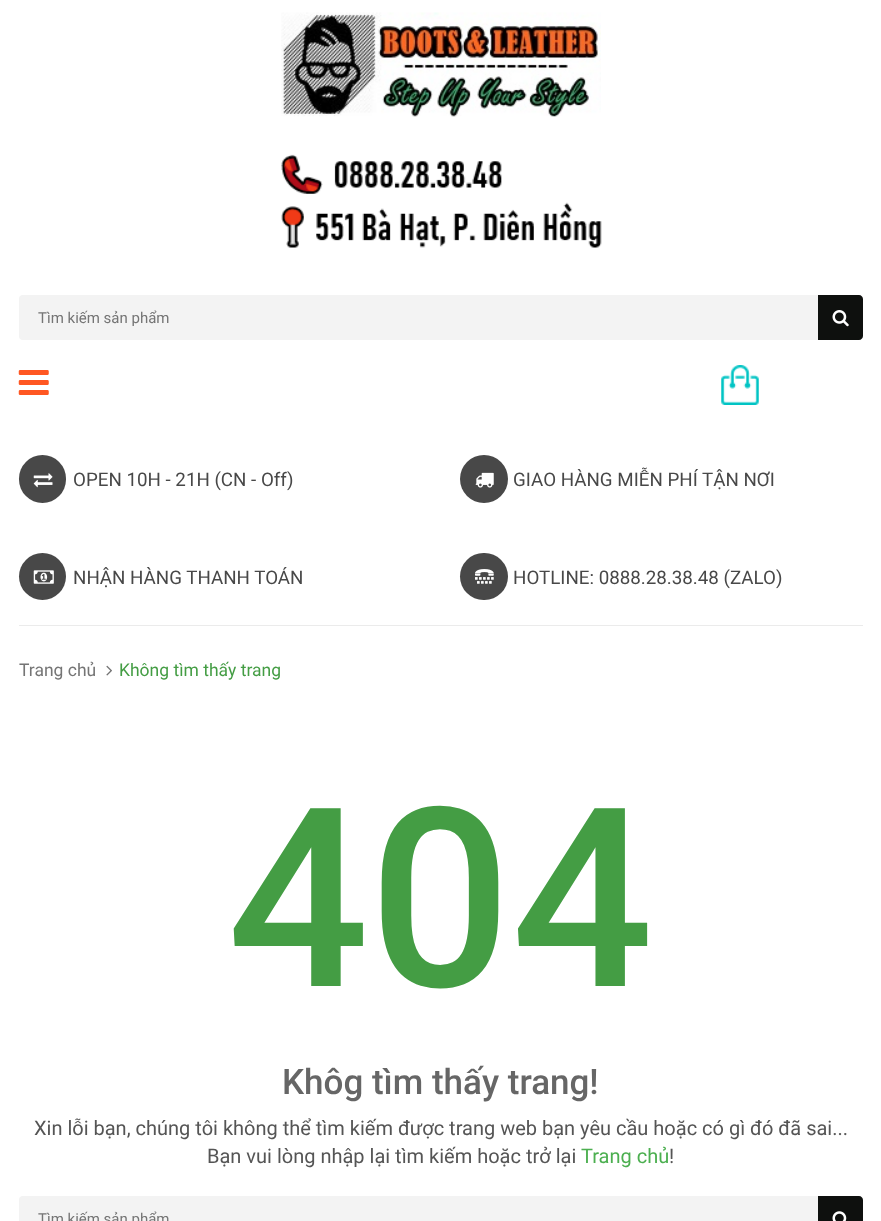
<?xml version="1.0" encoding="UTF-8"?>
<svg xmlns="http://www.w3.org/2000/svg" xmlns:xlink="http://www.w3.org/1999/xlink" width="881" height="1221">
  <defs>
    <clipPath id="clip1"><rect x="38" y="309" width="806" height="17" /></clipPath>
  </defs>
  <rect width="100%" height="100%" fill="#ffffff" />
  <image x="281" y="12" width="320" height="105" xlink:href="image1.png" />
  <image x="281" y="154" width="321" height="94" xlink:href="image2.png" />
  <rect x="19" y="295" width="844" height="45" rx="4" fill="#f3f3f3" />
  <path d="M 818 295 h 41 c 2 0 4 2 4 4 v 37 c 0 2 -2 4 -4 4 h -41 z" fill="#0e100e" />
  <image x="832" y="310" width="17" height="17" xlink:href="image3.png" />
  <image x="18" y="370" width="31" height="25" xlink:href="image4.png" />
  <image x="721" y="365" width="38" height="40" xlink:href="image5.png" />
  <rect x="19" y="455" width="47" height="48" rx="23.5" fill="#484848" />
  <image x="33" y="473" width="20" height="15" xlink:href="image6.png" />
  <circle cx="484" cy="479" r="24" fill="#484848" />
  <image x="475" y="472" width="19" height="16" xlink:href="image7.png" />
  <circle cx="42.5" cy="576.5" r="23.5" fill="#484848" />
  <image x="33" y="570" width="21" height="14" xlink:href="image8.png" />
  <rect x="460" y="553" width="48" height="47" rx="23.5" fill="#484848" />
  <image x="475" y="569" width="19" height="15" xlink:href="image9.png" />
  <rect x="19" y="625" width="844" height="1" fill="#ebebeb" />
  <image x="106" y="665" width="6" height="11" xlink:href="image10.png" />
  <rect x="19" y="1196" width="844" height="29" rx="4" fill="#f3f3f3" />
  <path d="M 818 1196 h 41 c 2 0 4 2 4 4 v 21 c 0 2 -2 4 -4 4 h -41 z" fill="#0e100e" />
  <image x="832" y="1211" width="15" height="10" xlink:href="image11.png" />
  <g clip-path="url(#clip1)">
    <text x="38" y="323" style="font-family: Roboto; font-size: 15px; fill: #757575">Tìm kiếm sản phẩm</text>
  </g>
  <text x="73" y="486" style="font-family: Roboto; font-size: 18.75px; fill: #484848">OPEN 10H - 21H (CN - Off)</text>
  <text x="513" y="486" style="font-family: Roboto; font-size: 18.75px; fill: #484848">GIAO HÀNG MIỄN PHÍ TẬN NƠI</text>
  <text x="73" y="584" style="font-family: Roboto; font-size: 18.75px; fill: #484848">NHẬN HÀNG THANH TOÁN</text>
  <text x="513" y="584" style="font-family: Roboto; font-size: 18.75px; fill: #484848">HOTLINE: 0888.28.38.48 (ZALO)</text>
  <text x="19" y="676" style="font-family: Roboto; font-size: 17.5px; fill: #757575">Trang chủ</text>
  <text x="119" y="676" style="font-family: Roboto; font-size: 17.5px; fill: #449d44">Không tìm thấy trang</text>
  <text x="227" y="986" style="font-family: Roboto; font-size: 250px; font-weight: 500; fill: #449d44">404</text>
  <text x="282" y="1094" style="font-family: Roboto; font-size: 35px; font-weight: 500; fill: #666666">Khôg tìm thấy trang!</text>
  <text x="34" y="1135" style="font-family: Roboto; font-size: 20px; fill: #555555">Xin lỗi bạn, chúng tôi không thể tìm kiếm được trang web bạn yêu cầu hoặc có gì đó đã sai...</text>
  <text x="207" y="1163" style="font-family: Roboto; font-size: 20px; fill: #555555">Bạn vui lòng nhập lại tìm kiếm hoặc trở lại</text>
  <text x="581" y="1163" style="font-family: Roboto; font-size: 20px; fill: #4caf50">Trang chủ</text>
  <text x="669" y="1163" style="font-family: Roboto; font-size: 20px; fill: #555555">!</text>
  <text x="38" y="1224" style="font-family: Roboto; font-size: 15px; fill: #757575">Tìm kiếm sản phẩm</text>
</svg>
